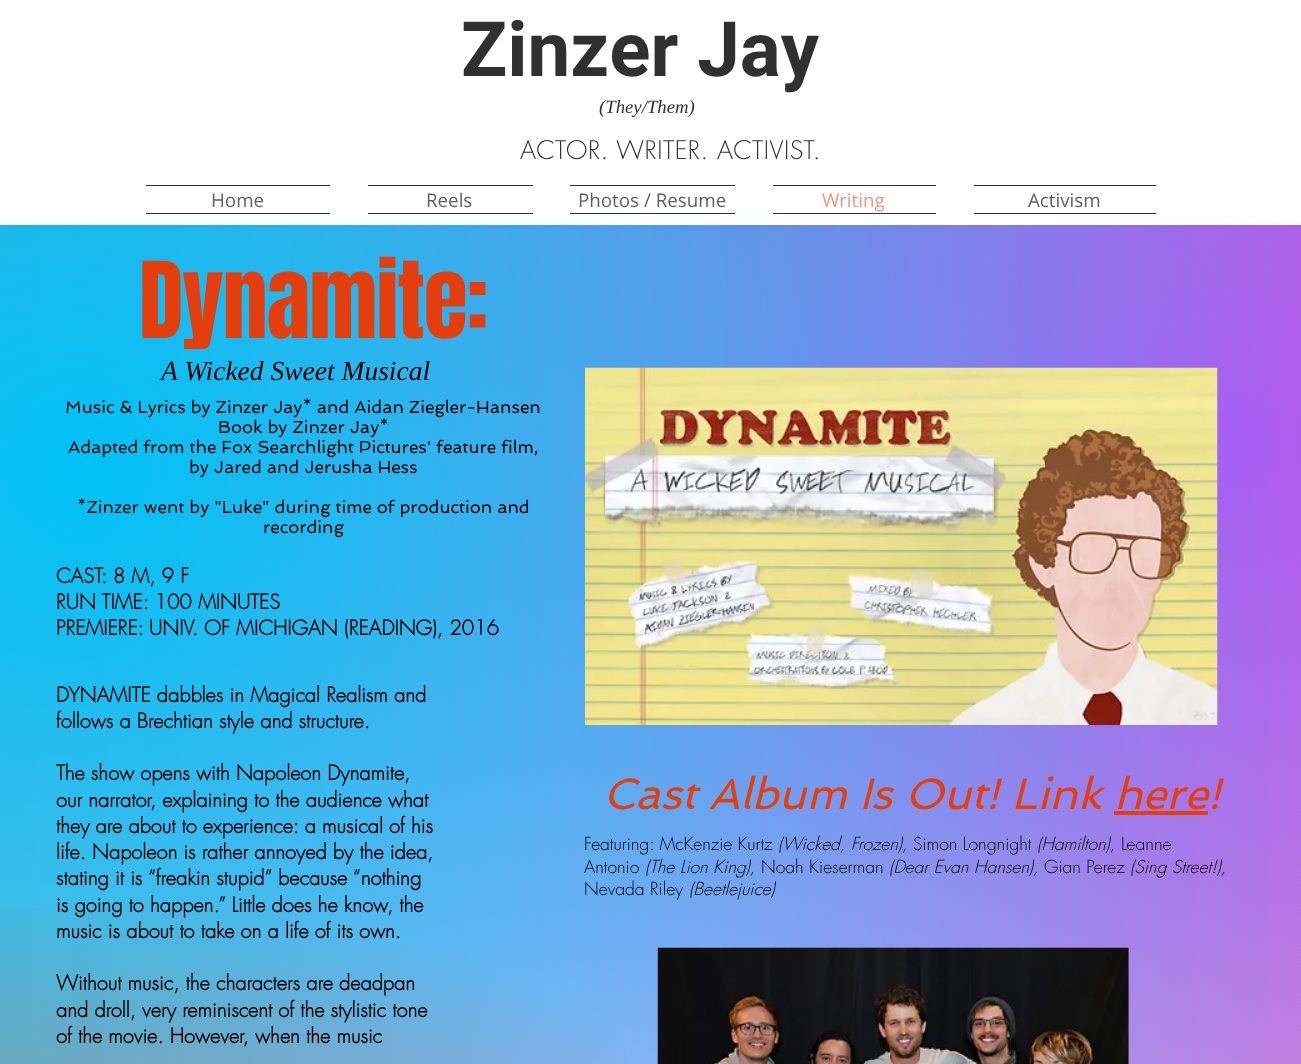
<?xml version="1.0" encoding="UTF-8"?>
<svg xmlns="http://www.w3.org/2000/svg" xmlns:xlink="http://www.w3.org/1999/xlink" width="1301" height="1064">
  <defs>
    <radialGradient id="g1" gradientUnits="userSpaceOnUse" cx="636" cy="1184" r="1182"><stop offset="0" stop-color="#ffffff" /><stop offset="1" stop-color="#ffffff" stop-opacity="0" /></radialGradient>
    <radialGradient id="g2" gradientUnits="userSpaceOnUse" cx="1219" cy="446" r="2104"><stop offset="0" stop-color="#d544f2" /><stop offset="0.7" stop-color="#d544f2" stop-opacity="0" /></radialGradient>
    <radialGradient id="g3" gradientUnits="userSpaceOnUse" cx="80" cy="469" r="2087"><stop offset="0" stop-color="#00c2f7" /><stop offset="0.7" stop-color="#00c2f7" stop-opacity="0" /></radialGradient>
    <radialGradient id="g4" gradientUnits="userSpaceOnUse" cx="85" cy="1930" r="2094"><stop offset="0" stop-color="#e33f0e" stop-opacity="0.99" /><stop offset="0.5" stop-color="#e33f0e" stop-opacity="0" /></radialGradient>
  </defs>
  <rect width="100%" height="100%" fill="#a7a7a7" />
  <image x="0" y="225" width="1301" height="839" xlink:href="image3.png" />
  <rect width="1301" height="225" fill="#000000" fill-opacity="0.5" filter="blur(3px)" />
  <rect width="1301" height="225" fill="#ffffff" />
  <rect x="146" y="185" width="184" height="1" fill="#303030" />
  <rect x="146" y="213" width="184" height="1" fill="#303030" />
  <rect x="368" y="185" width="165" height="1" fill="#303030" />
  <rect x="368" y="213" width="165" height="1" fill="#303030" />
  <rect x="570" y="185" width="165" height="1" fill="#303030" />
  <rect x="570" y="213" width="165" height="1" fill="#303030" />
  <rect x="773" y="185" width="163" height="1" fill="#303030" />
  <rect x="773" y="213" width="163" height="1" fill="#303030" />
  <rect x="974" y="185" width="182" height="1" fill="#303030" />
  <rect x="974" y="213" width="182" height="1" fill="#303030" />
  <rect y="225" width="1301" height="839" fill="url(#g1)" />
  <rect y="225" width="1301" height="839" fill="url(#g2)" />
  <rect y="225" width="1301" height="839" fill="url(#g3)" />
  <rect y="908" width="625" height="156" fill="url(#g4)" />
  <image x="585" y="367" width="633" height="358" xlink:href="image1.png" />
  <rect x="1114" y="811" width="94" height="4" fill="#e33f0e" />
  <image x="657" y="947" width="472" height="117" xlink:href="image2.png" />
  <text x="461" y="76" style="font-family: Heebo; font-size: 76.25px; font-weight: bold; fill: #303030">Zinzer Jay</text>
  <text x="599" y="113" style="font-family: Liberation Serif; font-size: 18.75px; font-style: italic; fill: #303030">(They/Them)</text>
  <text x="520" y="159" style="font-family: futura; font-size: 25px; font-weight: 300; letter-spacing: 0.5px; fill: #303030">ACTOR. WRITER. ACTIVIST.</text>
  <text x="211" y="207" style="font-family: Open Sans; font-size: 18.75px; fill: #5f5f5f">Home</text>
  <text x="426" y="207" style="font-family: Open Sans; font-size: 18.75px; fill: #5f5f5f">Reels</text>
  <text x="578" y="207" style="font-family: Open Sans; font-size: 18.75px; fill: #5f5f5f">Photos / Resume</text>
  <text x="822" y="207" style="font-family: Open Sans; font-size: 18.75px; fill: #ec977d">Writing</text>
  <text x="1028" y="207" style="font-family: Open Sans; font-size: 18.75px; fill: #5f5f5f">Activism</text>
  <text x="139" y="338" style="font-family: Anton; font-size: 90px; letter-spacing: -1px; fill: #e33f0e">Dynamite:</text>
  <text x="161" y="380" style="font-family: Liberation Serif; font-size: 27.5px; font-style: italic; fill: #000000">A Wicked Sweet Musical</text>
  <text x="65" y="413" style="font-family: Spinnaker; font-size: 17.5px; fill: #000000">Music &amp; Lyrics by Zinzer Jay* and Aidan Ziegler-Hansen</text>
  <text x="218" y="433" style="font-family: Spinnaker; font-size: 17.5px; fill: #000000">Book by Zinzer Jay*</text>
  <text x="68" y="453" style="font-family: Spinnaker; font-size: 17.5px; fill: #000000">Adapted from the Fox Searchlight Pictures' feature film,</text>
  <text x="189" y="473" style="font-family: Spinnaker; font-size: 17.5px; fill: #000000">by Jared and Jerusha Hess</text>
  <text x="77" y="513" style="font-family: Spinnaker; font-size: 17.5px; fill: #000000">*Zinzer went by "Luke" during time of production and</text>
  <text x="263" y="533" style="font-family: Spinnaker; font-size: 17.5px; fill: #000000">recording</text>
  <text x="56" y="583" style="font-family: futura; font-size: 20px; font-weight: bold; fill: #000000">CAST: 8 M, 9 F</text>
  <text x="56" y="609" style="font-family: futura; font-size: 20px; font-weight: bold; fill: #000000">RUN TIME: 100 MINUTES</text>
  <text x="56" y="635" style="font-family: futura; font-size: 20px; font-weight: bold; fill: #000000">PREMIERE: UNIV. OF MICHIGAN (READING), 2016</text>
  <text x="56" y="702" style="font-family: futura; font-size: 20px; font-weight: bold; fill: #000000">DYNAMITE dabbles in Magical Realism and</text>
  <text x="56" y="728" style="font-family: futura; font-size: 20px; font-weight: bold; fill: #000000">follows a Brechtian style and structure.</text>
  <text x="56" y="780" style="font-family: futura; font-size: 20px; font-weight: bold; fill: #000000">The show opens with Napoleon Dynamite,</text>
  <text x="56" y="807" style="font-family: futura; font-size: 20px; font-weight: bold; fill: #000000">our narrator, explaining to the audience what</text>
  <text x="56" y="833" style="font-family: futura; font-size: 20px; font-weight: bold; fill: #000000">they are about to experience: a musical of his</text>
  <text x="56" y="859" style="font-family: futura; font-size: 20px; font-weight: bold; fill: #000000">life. Napoleon is rather annoyed by the idea,</text>
  <text x="56" y="885" style="font-family: futura; font-size: 20px; font-weight: bold; fill: #000000">stating it is “freakin stupid” because “nothing</text>
  <text x="56" y="912" style="font-family: futura; font-size: 20px; font-weight: bold; fill: #000000">is going to happen.” Little does he know, the</text>
  <text x="56" y="938" style="font-family: futura; font-size: 20px; font-weight: bold; fill: #000000">music is about to take on a life of its own.</text>
  <text x="56" y="990" style="font-family: futura; font-size: 20px; font-weight: bold; fill: #000000">Without music, the characters are deadpan</text>
  <text x="56" y="1017" style="font-family: futura; font-size: 20px; font-weight: bold; fill: #000000">and droll, very reminiscent of the stylistic tone</text>
  <text x="56" y="1043" style="font-family: futura; font-size: 20px; font-weight: bold; fill: #000000">of the movie. However, when the music</text>
  <text x="603" y="809" style="font-family: Spinnaker; font-size: 43.75px; font-style: italic; fill: #e33f0e">Cast Album Is Out! Link here!</text>
  <text x="584" y="850" style="font-family: futura; font-size: 17.5px; font-weight: 300; fill: #000000">Featuring: McKenzie Kurtz</text>
  <text x="778" y="850" style="font-family: futura; font-size: 17.5px; font-weight: 300; font-style: italic; fill: #000000">(Wicked, Frozen),</text>
  <text x="913" y="850" style="font-family: futura; font-size: 17.5px; font-weight: 300; fill: #000000">Simon Longnight</text>
  <text x="1037" y="850" style="font-family: futura; font-size: 17.5px; font-weight: 300; font-style: italic; fill: #000000">(Hamilton),</text>
  <text x="1121" y="850" style="font-family: futura; font-size: 17.5px; font-weight: 300; fill: #000000">Leanne</text>
  <text x="584" y="873" style="font-family: futura; font-size: 17.5px; font-weight: 300; fill: #000000">Antonio</text>
  <text x="645" y="873" style="font-family: futura; font-size: 17.5px; font-weight: 300; font-style: italic; fill: #000000">(The Lion King),</text>
  <text x="761" y="873" style="font-family: futura; font-size: 17.5px; font-weight: 300; fill: #000000">Noah Kieserman</text>
  <text x="889" y="873" style="font-family: futura; font-size: 17.5px; font-weight: 300; font-style: italic; fill: #000000">(Dear Evan Hansen),</text>
  <text x="1044" y="873" style="font-family: futura; font-size: 17.5px; font-weight: 300; fill: #000000">Gian Perez</text>
  <text x="1130" y="873" style="font-family: futura; font-size: 17.5px; font-weight: 300; font-style: italic; fill: #000000">(Sing Street!),</text>
  <text x="584" y="895" style="font-family: futura; font-size: 17.5px; font-weight: 300; fill: #000000">Nevada Riley</text>
  <text x="689" y="895" style="font-family: futura; font-size: 17.5px; font-weight: 300; font-style: italic; fill: #000000">(Beetlejuice)</text>
</svg>
